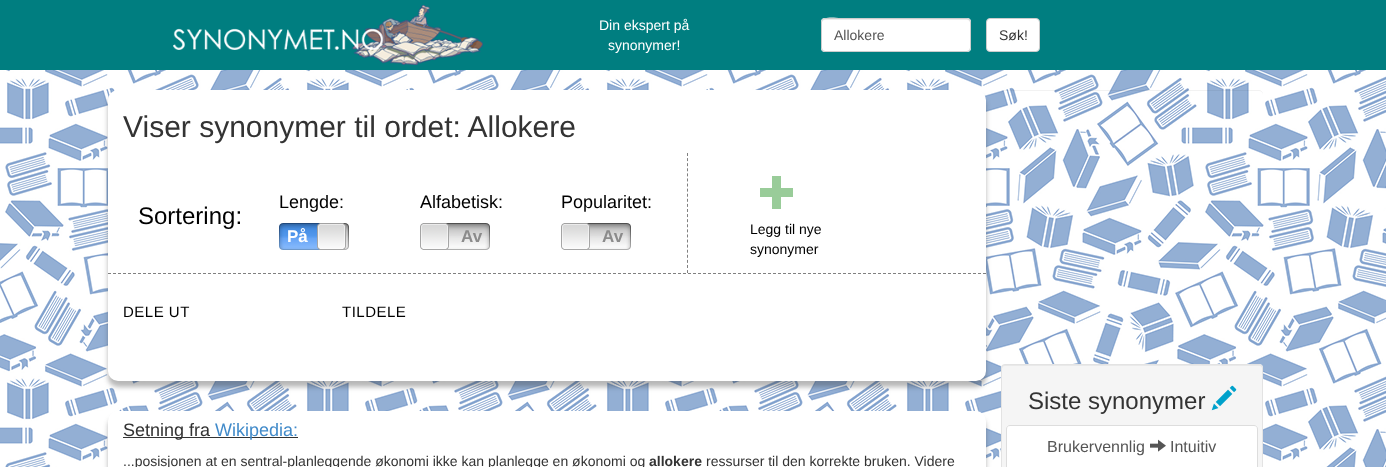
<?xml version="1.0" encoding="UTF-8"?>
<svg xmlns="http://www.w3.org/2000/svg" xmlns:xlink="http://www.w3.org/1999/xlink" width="1386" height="467">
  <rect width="100%" height="100%" fill="#ffffff" />
  <image x="0" y="70" width="1386" height="397" xlink:href="image1.png" />
  <rect width="1386" height="70" fill="#007e80" />
  <image x="173" y="5" width="310" height="60" xlink:href="image2.png" />
  <rect x="821" y="18" width="150" height="34" rx="4" fill="#ffffff" />
  <path d="M 825 20 h 142 c 2 0 3 1 3 3 c 0 -2 0 -3 -2 -4 h -119 c -8 0 -27 -5 -27 4 c 0 -2 1 -3 3 -3 z" fill="#ececec" />
  <rect x="821.5" y="18.5" width="149" height="33" rx="3.5" fill="none" stroke="#cccccc" />
  <rect x="986.5" y="18.5" width="53" height="33" rx="3.5" fill="#ffffff" stroke="#cccccc" />
  <rect x="108" y="96" width="878" height="291" rx="10" fill="#323232" fill-opacity="0.35" filter="blur(2.5px)" />
  <rect x="108" y="90" width="878" height="291" rx="10" fill="#ffffff" />
  <path d="M 687.5 153 v 120" fill="none" stroke="#808080" stroke-dasharray="3 2.09" />
  <image x="279" y="223" width="41" height="27" xlink:href="image6.png" />
  <image x="317" y="223" width="3" height="27" xlink:href="image3.png" />
  <image x="343" y="223" width="6" height="27" xlink:href="image7.png" />
  <image x="343" y="223" width="3" height="27" xlink:href="image4.png" />
  <image x="320" y="223" width="23" height="27" xlink:href="image5.png" />
  <image x="420" y="223" width="3" height="27" xlink:href="image8.png" />
  <image x="446" y="223" width="44" height="27" xlink:href="image10.png" />
  <image x="446" y="223" width="3" height="27" xlink:href="image9.png" />
  <image x="423" y="223" width="23" height="27" xlink:href="image5.png" />
  <image x="561" y="223" width="3" height="27" xlink:href="image8.png" />
  <image x="587" y="223" width="44" height="27" xlink:href="image10.png" />
  <image x="587" y="223" width="3" height="27" xlink:href="image9.png" />
  <image x="564" y="223" width="23" height="27" xlink:href="image5.png" />
  <path d="M 760 197 v -9 h 12 v -12 h 9 v 12 h 12 v 9 h -12 v 12 h -9 v -12 z" fill="#99cc99" />
  <path d="M 108 273.5 h 878" fill="none" stroke="#808080" stroke-dasharray="3 2" />
  <rect x="108" y="417" width="878" height="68" rx="10" fill="#323232" fill-opacity="0.35" filter="blur(2.5px)" />
  <rect x="108" y="411" width="878" height="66" rx="10" fill="#ffffff" />
  <rect x="123" y="437" width="175" height="1" fill="#333333" />
  <path d="M 1005 91 h 254 c 2 0 4 2 4 4 v -1 c 0 -2 -2 -4 -4 -4 h -254 c -2 0 -4 2 -4 4 v 1 c 0 -2 2 -4 4 -4 z" fill="#000000" fill-opacity="0.05" />
  <rect x="1001" y="364" width="262" height="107" rx="4" fill="#f5f5f5" />
  <path d="M 1005 366 h 255 l 2 1 v 2 v -1 c 0 -2 -1 -3 -3 -3 h -254 c -2 0 -3 1 -3 3 v 1 c 0 -2 1 -3 3 -3 z" fill="#e9e9e9" />
  <rect x="1001.5" y="364.5" width="261" height="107" rx="3.5" fill="none" stroke="#e3e3e3" />
  <image x="1211" y="385" width="26" height="26" xlink:href="image11.png" />
  <path d="M 1010 425.5 h 244 c 2 0 3.5 1.5 3.5 3.5 v 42.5 h -251 v -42.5 c 0 -2 1.5 -3.5 3.5 -3.5 z" fill="#ffffff" stroke="#dddddd" />
  <image x="1150" y="439" width="16" height="13" xlink:href="image12.png" />
  <text x="599" y="30" style="font-family: Liberation Sans; font-size: 14px; fill: #ffffff">Din ekspert på</text>
  <text x="608" y="50" style="font-family: Liberation Sans; font-size: 14px; fill: #ffffff">synonymer!</text>
  <text x="834" y="40" style="font-family: Liberation Sans; font-size: 14px; fill: #555555">Allokere</text>
  <text x="999" y="40" style="font-family: Liberation Sans; font-size: 14px; fill: #333333">Søk!</text>
  <text x="123" y="137" style="font-family: Liberation Sans; font-size: 30px; fill: #333333">Viser synonymer til ordet: Allokere</text>
  <text x="138" y="224" style="font-family: Liberation Sans; font-size: 24px; fill: #000000">Sortering:</text>
  <text x="279" y="208" style="font-family: Liberation Sans; font-size: 18px; fill: #000000">Lengde:</text>
  <text x="287" y="242" style="font-family: Liberation Sans; font-size: 17px; font-weight: bold; fill: #ffffff">På</text>
  <text x="420" y="208" style="font-family: Liberation Sans; font-size: 18px; fill: #000000">Alfabetisk:</text>
  <text x="461" y="242" style="font-family: Liberation Sans; font-size: 17px; font-weight: bold; fill: #8b8b8b">Av</text>
  <text x="561" y="208" style="font-family: Liberation Sans; font-size: 18px; fill: #000000">Popularitet:</text>
  <text x="602" y="242" style="font-family: Liberation Sans; font-size: 17px; font-weight: bold; fill: #8b8b8b">Av</text>
  <text x="750" y="234" style="font-family: Liberation Sans; font-size: 14px; fill: #000000">Legg til nye</text>
  <text x="750" y="254" style="font-family: Liberation Sans; font-size: 14px; fill: #000000">synonymer</text>
  <text x="123" y="317" style="font-family: Liberation Sans; font-size: 15px; letter-spacing: 0.5px; fill: #000000">DELE UT</text>
  <text x="342" y="317" style="font-family: Liberation Sans; font-size: 15px; letter-spacing: 0.5px; fill: #000000">TILDELE</text>
  <text x="123" y="436" style="font-family: Liberation Sans; font-size: 18px; fill: #333333">Setning fra</text>
  <text x="215" y="436" style="font-family: Liberation Sans; font-size: 18px; fill: #428bca">Wikipedia:</text>
  <text x="123" y="466" style="font-family: Liberation Sans; font-size: 14px; fill: #333333">...posisjonen at en sentral-planleggende økonomi ikke kan planlegge en økonomi og</text>
  <text x="649" y="466" style="font-family: Liberation Sans; font-size: 14px; font-weight: bold; fill: #333333">allokere</text>
  <text x="706" y="466" style="font-family: Liberation Sans; font-size: 14px; fill: #333333">ressurser til den korrekte bruken. Videre</text>
  <text x="1028" y="409" style="font-family: Liberation Sans; font-size: 24px; fill: #333333">Siste synonymer</text>
  <text x="1047" y="452" style="font-family: Liberation Sans; font-size: 16px; fill: #555555">Brukervennlig</text>
  <text x="1170" y="452" style="font-family: Liberation Sans; font-size: 16px; fill: #555555">Intuitiv</text>
</svg>
